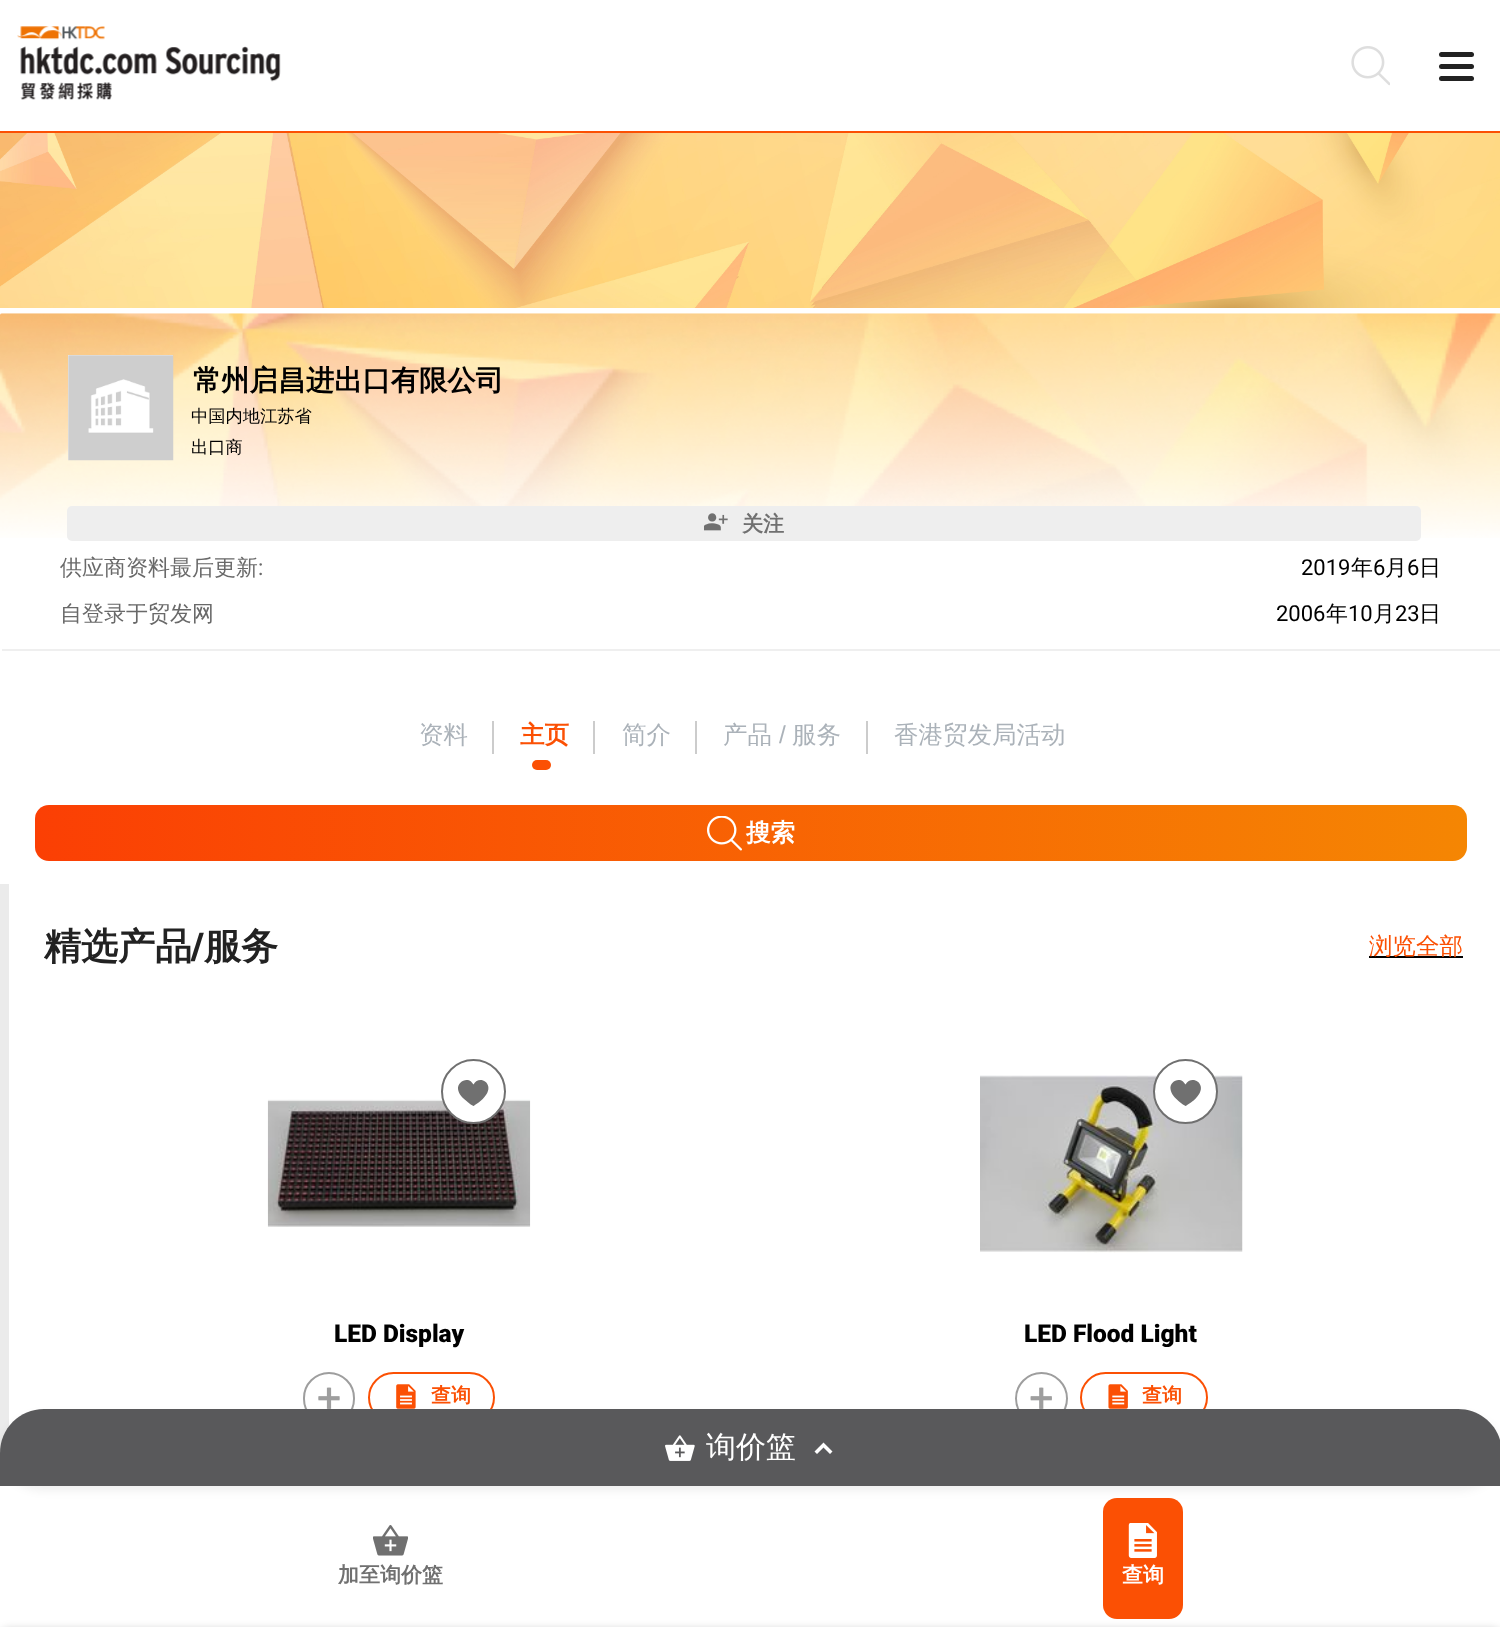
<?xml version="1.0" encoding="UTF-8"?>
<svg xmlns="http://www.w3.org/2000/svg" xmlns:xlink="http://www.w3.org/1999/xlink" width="1500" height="1627">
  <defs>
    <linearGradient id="g1" gradientUnits="userSpaceOnUse" x1="1467" y1="835" x2="35" y2="831"><stop offset="0" stop-color="#f58603" /><stop offset="1" stop-color="#fb3f04" /></linearGradient>
  </defs>
  <rect width="100%" height="100%" fill="#ffffff" />
  <rect y="131" width="1500" height="2" fill="#fb5004" />
  <image x="17" y="26" width="264" height="74" xlink:href="image1.png" />
  <image x="1351" y="46" width="39" height="40" xlink:href="image2.png" />
  <rect x="1439" y="52" width="35" height="5" rx="2.5" fill="#222222" />
  <rect x="1439" y="64" width="35" height="5" rx="2.5" fill="#222222" />
  <rect x="1439" y="76" width="35" height="5" rx="2.5" fill="#222222" />
  <image x="0" y="133" width="1500" height="175" xlink:href="image3.png" />
  <image x="0" y="313" width="1500" height="225" xlink:href="image4.png" />
  <rect x="2" y="649" width="1498" height="2" fill="#efefef" />
  <rect x="68" y="355" width="105" height="105" fill="#ffffff" />
  <image x="68" y="355" width="106" height="106" xlink:href="image5.png" />
  <rect x="67" y="506" width="1354" height="35" rx="5" fill="#eeeeee" />
  <image x="704" y="513" width="24" height="18" xlink:href="image6.png" />
  <rect x="492" y="721" width="2" height="33" fill="#cccccc" />
  <rect x="532" y="760" width="19" height="10" rx="5" fill="#fb5004" />
  <rect x="593" y="721" width="2" height="33" fill="#cccccc" />
  <rect x="695" y="721" width="2" height="33" fill="#cccccc" />
  <rect x="866" y="721" width="2" height="33" fill="#cccccc" />
  <rect x="35" y="805" width="1432" height="56" rx="14" fill="url(#g1)" />
  <image x="707" y="816" width="35" height="35" xlink:href="image7.png" />
  <rect y="884" width="9" height="569" fill="#ebebeb" />
  <rect x="1369" y="956" width="94" height="2" fill="#000000" />
  <image x="267" y="1099" width="264" height="128" xlink:href="image8.png" />
  <circle cx="473.5" cy="1091.5" r="31.5" fill="#ffffff" stroke="#707070" stroke-width="2" />
  <path d="M 473.5 1084.5 c 6 -11.5 26 1 7 16.5 c -0.5 0.5 -6 4.5 -7 5 c -1 0 -6 -4 -7 -5 c -4 -3 -8 -7 -8.5 -12 c -0.5 -6.5 7.5 -11.5 13 -7.5 z" fill="#707070" />
  <rect x="304" y="1373" width="50" height="51" rx="25" fill="none" stroke="#9e9e9e" stroke-width="2" />
  <image x="318" y="1387" width="22" height="22" xlink:href="image9.png" />
  <rect x="369" y="1373" width="125" height="49" rx="24.5" fill="none" stroke="#fb5004" stroke-width="2" />
  <image x="396" y="1384" width="20" height="25" xlink:href="image10.png" />
  <image x="980" y="1075" width="263" height="178" xlink:href="image11.png" />
  <circle cx="1185.5" cy="1091.5" r="31.5" fill="#ffffff" stroke="#707070" stroke-width="2" />
  <path d="M 1185.5 1084.5 c 6.5 -11.5 26.5 1 7.5 16.5 c -1 0.5 -6 4.5 -7.5 5 c -0.5 0 -6 -4 -7 -5 c -3.5 -3 -7.5 -7 -8 -12 c -1 -6.5 7 -11.5 12.5 -7.5 z" fill="#707070" />
  <circle cx="1041.5" cy="1398.5" r="25.5" fill="none" stroke="#9e9e9e" stroke-width="2" />
  <image x="1030" y="1387" width="22" height="22" xlink:href="image12.png" />
  <rect x="1081" y="1373" width="126" height="49" rx="24.5" fill="none" stroke="#fb5004" stroke-width="2" />
  <image x="1108" y="1384" width="20" height="25" xlink:href="image13.png" />
  <image x="373" y="1525" width="35" height="31" xlink:href="image14.png" />
  <rect x="1103" y="1498" width="80" height="121" rx="14" fill="#fb5004" />
  <image x="1128" y="1523" width="29" height="35" xlink:href="image15.png" />
  <rect y="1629" width="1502" height="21" rx="9" fill="#000000" fill-opacity="0.2" filter="blur(4.5px)" />
  <rect y="1414" width="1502" height="77" rx="44" fill="#000000" fill-opacity="0.06" filter="blur(4.5px)" />
  <path d="M 44 1409 h 1414 c 24.5 0 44 19.5 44 44 v 33 h -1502 v -33 c 0 -24.5 19.5 -44 44 -44 z" fill="#59595b" />
  <image x="665" y="1435" width="30" height="26" xlink:href="image16.png" />
  <path d="M 817 1454 l 6.5 -6.5 l 6.5 6.5 l 2.5 -2.5 l -9 -9 l -9 9 z" fill="#ffffff" />
  <text x="193" y="390" style="font-family: WenQuanYi Zen Hei; font-size: 28.25px; font-weight: bold; fill: #000000">常州启昌进出口有限公司</text>
  <text x="191" y="422" style="font-family: WenQuanYi Zen Hei; font-size: 17.25px; font-weight: 500; fill: #000000">中国内地江苏省</text>
  <text x="191" y="453" style="font-family: WenQuanYi Zen Hei; font-size: 17.25px; font-weight: 500; fill: #000000">出口商</text>
  <text x="742" y="531" style="font-family: WenQuanYi Zen Hei; font-size: 21px; font-weight: bold; fill: #707070">关注</text>
  <text x="60" y="575" style="font-family: WenQuanYi Zen Hei; font-size: 22px; font-weight: 500; fill: #696969">供应商资料最后更新</text>
  <text x="258" y="575" style="font-family: Roboto; font-size: 22px; fill: #696969">:</text>
  <text x="1301" y="575" style="font-family: Roboto; font-size: 22px; fill: #000000">2019</text>
  <text x="1351" y="575" style="font-family: WenQuanYi Zen Hei; font-size: 22px; font-weight: 500; fill: #000000">年</text>
  <text x="1373" y="575" style="font-family: Roboto; font-size: 22px; fill: #000000">6</text>
  <text x="1385" y="575" style="font-family: WenQuanYi Zen Hei; font-size: 22px; font-weight: 500; fill: #000000">月</text>
  <text x="1407" y="575" style="font-family: Roboto; font-size: 22px; fill: #000000">6</text>
  <text x="1419" y="575" style="font-family: WenQuanYi Zen Hei; font-size: 22px; font-weight: 500; fill: #000000">日</text>
  <text x="60" y="621" style="font-family: WenQuanYi Zen Hei; font-size: 22px; font-weight: 500; fill: #696969">自登录于贸发网</text>
  <text x="1276" y="621" style="font-family: Roboto; font-size: 22px; fill: #000000">2006</text>
  <text x="1326" y="621" style="font-family: WenQuanYi Zen Hei; font-size: 22px; font-weight: 500; fill: #000000">年</text>
  <text x="1348" y="621" style="font-family: Roboto; font-size: 22px; fill: #000000">10</text>
  <text x="1373" y="621" style="font-family: WenQuanYi Zen Hei; font-size: 22px; font-weight: 500; fill: #000000">月</text>
  <text x="1395" y="621" style="font-family: Roboto; font-size: 22px; fill: #000000">23</text>
  <text x="1419" y="621" style="font-family: WenQuanYi Zen Hei; font-size: 22px; font-weight: 500; fill: #000000">日</text>
  <text x="419" y="743" style="font-family: WenQuanYi Zen Hei; font-size: 24.5px; font-weight: 500; fill: #abb2b9">资料</text>
  <text x="520" y="743" style="font-family: WenQuanYi Zen Hei; font-size: 24.5px; font-weight: bold; fill: #fb5004">主页</text>
  <text x="622" y="743" style="font-family: WenQuanYi Zen Hei; font-size: 24.5px; font-weight: 500; fill: #abb2b9">简介</text>
  <text x="723" y="743" style="font-family: WenQuanYi Zen Hei; font-size: 24.5px; font-weight: 500; fill: #abb2b9">产品</text>
  <text x="779" y="743" style="font-family: Liberation Sans; font-size: 24.5px; fill: #abb2b9">/</text>
  <text x="792" y="743" style="font-family: WenQuanYi Zen Hei; font-size: 24.5px; font-weight: 500; fill: #abb2b9">服务</text>
  <text x="894" y="743" style="font-family: WenQuanYi Zen Hei; font-size: 24.5px; font-weight: 500; fill: #abb2b9">香港贸发局活动</text>
  <text x="746" y="841" style="font-family: WenQuanYi Zen Hei; font-size: 24.5px; font-weight: bold; fill: #ffffff">搜索</text>
  <text x="44" y="959" style="font-family: WenQuanYi Zen Hei; font-size: 37px; font-weight: bold; fill: #222222">精选产品</text>
  <text x="191" y="959" style="font-family: Roboto; font-size: 37px; font-weight: 900; fill: #222222">/</text>
  <text x="204" y="959" style="font-family: WenQuanYi Zen Hei; font-size: 37px; font-weight: bold; fill: #222222">服务</text>
  <text x="1369" y="954" style="font-family: WenQuanYi Zen Hei; font-size: 23.5px; font-weight: 500; fill: #fb5004">浏览全部</text>
  <text x="334" y="1342" style="font-family: Roboto; font-size: 24.5px; font-weight: 900; fill: #000000">LED Display</text>
  <text x="431" y="1402" style="font-family: WenQuanYi Zen Hei; font-size: 20px; font-weight: bold; fill: #fb5004">查询</text>
  <text x="1024" y="1342" style="font-family: Roboto; font-size: 24.5px; font-weight: 900; fill: #000000">LED Flood Light</text>
  <text x="1142" y="1402" style="font-family: WenQuanYi Zen Hei; font-size: 20px; font-weight: bold; fill: #fb5004">查询</text>
  <text x="338" y="1582" style="font-family: WenQuanYi Zen Hei; font-size: 21px; font-weight: bold; fill: #707070">加至询价篮</text>
  <text x="1122" y="1582" style="font-family: WenQuanYi Zen Hei; font-size: 21px; font-weight: bold; fill: #ffffff">查询</text>
  <text x="706" y="1457" style="font-family: WenQuanYi Zen Hei; font-size: 30px; font-weight: 500; fill: #ffffff">询价篮</text>
</svg>
